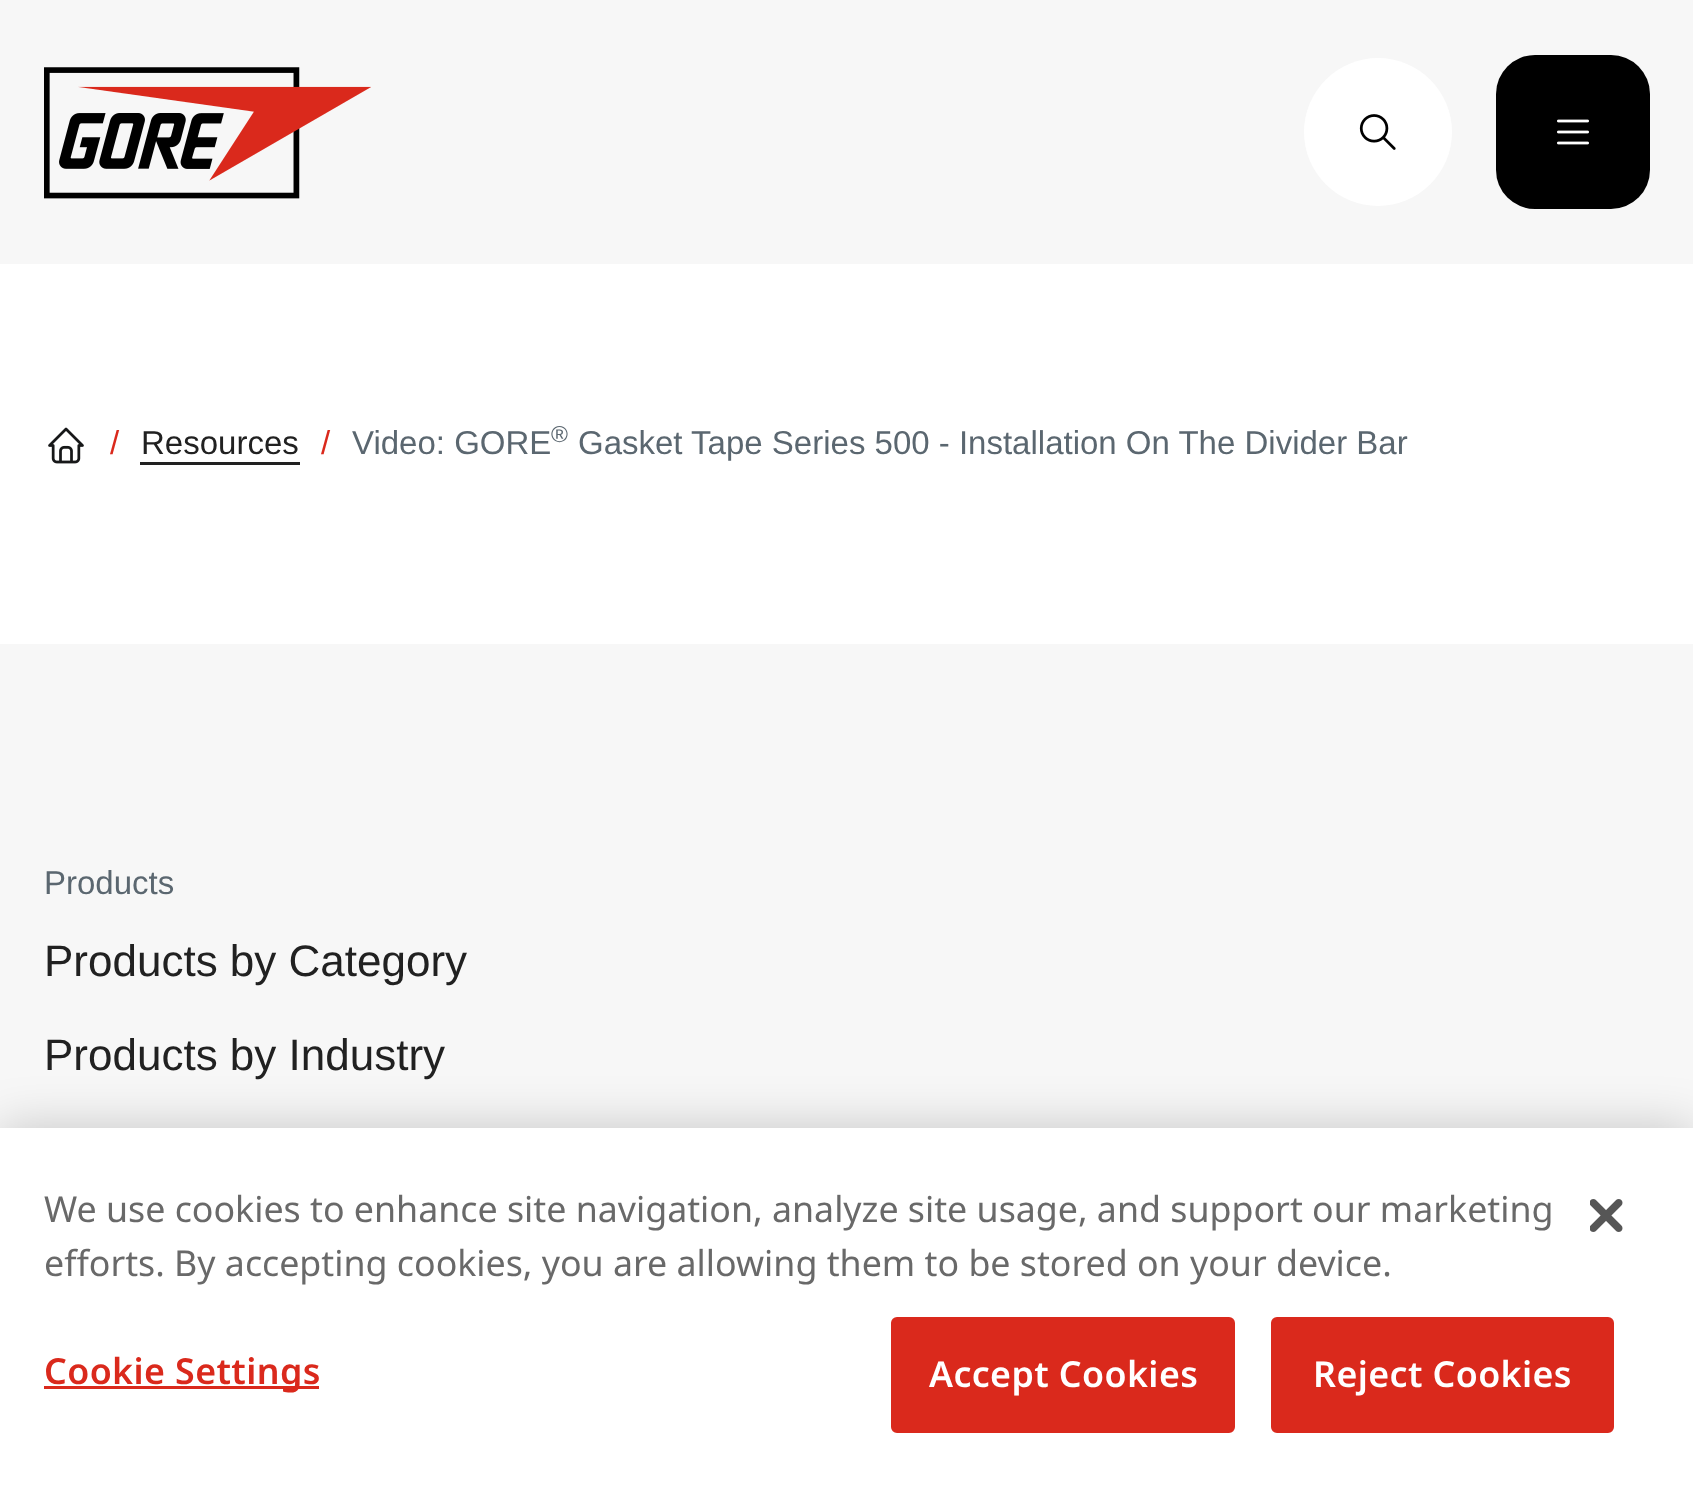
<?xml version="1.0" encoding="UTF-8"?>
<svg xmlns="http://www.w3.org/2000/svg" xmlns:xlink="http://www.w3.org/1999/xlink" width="1693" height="1488">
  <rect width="100%" height="100%" fill="#ffffff" />
  <rect width="1693" height="264" fill="#f7f7f7" />
  <image x="44" y="67" width="327" height="132" xlink:href="image1.png" />
  <circle cx="1378" cy="132" r="74" fill="#ffffff" />
  <image x="1359" y="114" width="37" height="36" xlink:href="image2.png" />
  <rect x="1496" y="55" width="154" height="154" rx="39" fill="#000000" />
  <image x="1557" y="119" width="32" height="26" xlink:href="image3.png" />
  <image x="48" y="427" width="36" height="37" xlink:href="image4.png" />
  <rect x="140" y="462" width="160" height="3" fill="#212121" />
  <rect y="644" width="1693" height="484" fill="#f7f7f7" />
  <rect y="1128" width="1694" height="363" fill="#000000" fill-opacity="0.2" filter="blur(25px)" />
  <rect y="1128" width="1693" height="360" fill="#ffffff" />
  <rect x="44" y="1386" width="275" height="3" fill="#da291c" />
  <rect x="892.5" y="1318.5" width="341" height="113" rx="4.5" fill="#da291c" stroke="#da291c" stroke-width="3" />
  <rect x="1272.5" y="1318.5" width="340" height="113" rx="4.5" fill="#da291c" stroke="#da291c" stroke-width="3" />
  <image x="1590" y="1199" width="33" height="33" xlink:href="image5.png" />
  <text x="110" y="454" style="font-family: Liberation Sans; font-size: 33px; fill: #da291c">/</text>
  <text x="141" y="454" style="font-family: Liberation Sans; font-size: 33px; fill: #212121">Resources</text>
  <text x="321" y="454" style="font-family: Liberation Sans; font-size: 33px; fill: #da291c">/</text>
  <text x="352" y="454" style="font-family: Liberation Sans; font-size: 33px; fill: #5b6770">Video: GORE</text>
  <text x="551" y="442" style="font-family: Liberation Sans; font-size: 23px; fill: #5b6770">®</text>
  <text x="578" y="454" style="font-family: Liberation Sans; font-size: 33px; fill: #5b6770">Gasket Tape Series 500 - Installation On The Divider Bar</text>
  <text x="44" y="894" style="font-family: Liberation Sans; font-size: 33px; fill: #5b6770">Products</text>
  <text x="44" y="976" style="font-family: Liberation Sans; font-size: 44px; fill: #212121">Products by Category</text>
  <text x="44" y="1070" style="font-family: Liberation Sans; font-size: 44px; fill: #212121">Products by Industry</text>
  <text x="44" y="1222" style="font-family: Noto Sans; font-size: 35.75px; fill: #696969">We use cookies to enhance site navigation, analyze site usage, and support our marketing</text>
  <text x="44" y="1276" style="font-family: Noto Sans; font-size: 35.75px; fill: #696969">efforts. By accepting cookies, you are allowing them to be stored on your device.</text>
  <text x="44" y="1384" style="font-family: Noto Sans; font-size: 35.75px; font-weight: 600; letter-spacing: 0.4px; fill: #da291c">Cookie Settings</text>
  <text x="929" y="1387" style="font-family: Noto Sans; font-size: 35.75px; font-weight: 600; letter-spacing: 0.4px; fill: #ffffff">Accept Cookies</text>
  <text x="1313" y="1387" style="font-family: Noto Sans; font-size: 35.75px; font-weight: 600; letter-spacing: 0.4px; fill: #ffffff">Reject Cookies</text>
</svg>
